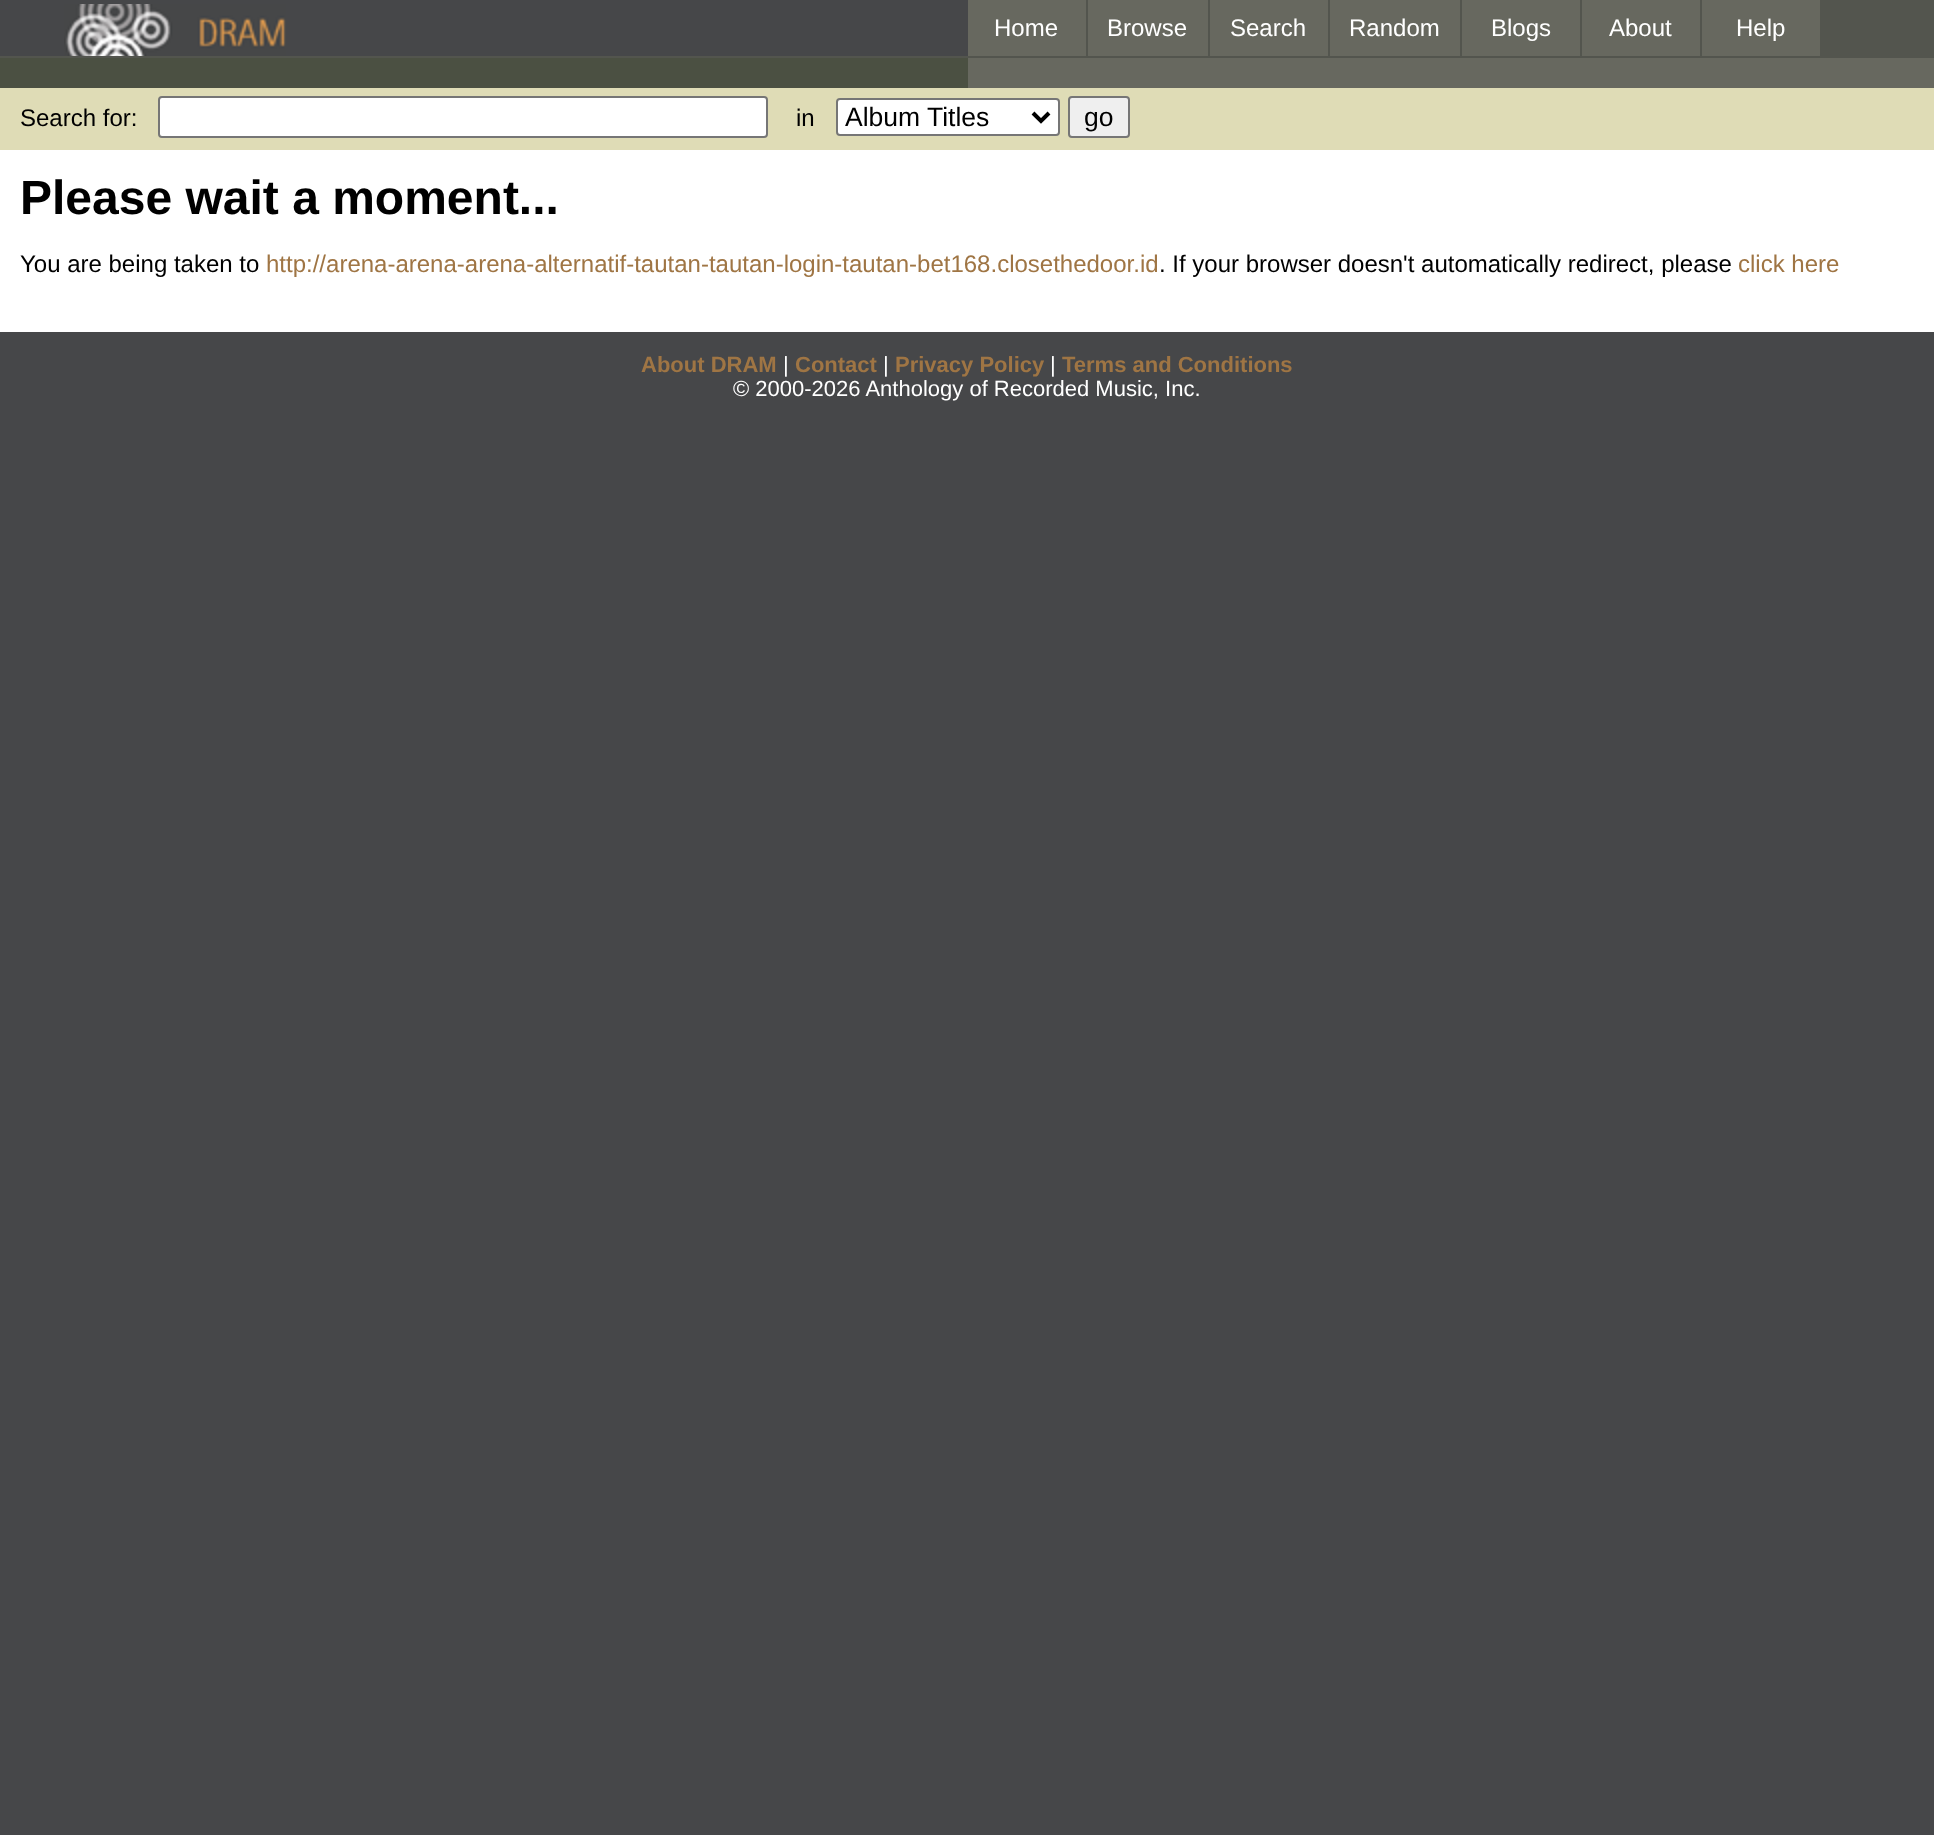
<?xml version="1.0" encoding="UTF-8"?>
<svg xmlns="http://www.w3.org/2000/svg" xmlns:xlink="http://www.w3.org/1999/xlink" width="1934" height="1835">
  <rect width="100%" height="100%" fill="#464749" />
  <image x="64" y="4" width="222" height="52" xlink:href="image1.png" />
  <rect x="1086" width="848" height="56" fill="#53554e" />
  <rect x="968" width="118" height="56" fill="#67685f" />
  <rect x="1088" width="120" height="56" fill="#67685f" />
  <rect x="1210" width="118" height="56" fill="#67685f" />
  <rect x="1330" width="130" height="56" fill="#67685f" />
  <rect x="1462" width="118" height="56" fill="#67685f" />
  <rect x="1582" width="118" height="56" fill="#67685f" />
  <rect x="1702" width="118" height="56" fill="#67685f" />
  <rect x="968" y="58" width="966" height="30" fill="#67685f" />
  <rect y="56" width="1934" height="2" fill="#53554e" />
  <rect y="58" width="968" height="30" fill="#4b5042" />
  <rect y="88" width="1934" height="62" fill="#dfdcb6" />
  <rect x="159" y="97" width="608" height="40" rx="3" fill="#ffffff" stroke="#767676" stroke-width="2" />
  <rect x="837" y="99" width="222" height="36" rx="3" fill="#ffffff" stroke="#767676" stroke-width="2" />
  <path d="M 1033 113 l 8 8 l 8 -8" fill="none" stroke="#000000" stroke-width="4" />
  <rect x="1069" y="97" width="60" height="40" rx="3" fill="#efefef" stroke="#767676" stroke-width="2" />
  <rect y="150" width="1934" height="182" fill="#ffffff" />
  <text x="994" y="36" style="font-family: Liberation Sans; font-size: 24px; fill: #ffffff">Home</text>
  <text x="1107" y="36" style="font-family: Liberation Sans; font-size: 24px; fill: #ffffff">Browse</text>
  <text x="1230" y="36" style="font-family: Liberation Sans; font-size: 24px; fill: #ffffff">Search</text>
  <text x="1349" y="36" style="font-family: Liberation Sans; font-size: 24px; fill: #ffffff">Random</text>
  <text x="1491" y="36" style="font-family: Liberation Sans; font-size: 24px; fill: #ffffff">Blogs</text>
  <text x="1609" y="36" style="font-family: Liberation Sans; font-size: 24px; fill: #ffffff">About</text>
  <text x="1736" y="36" style="font-family: Liberation Sans; font-size: 24px; fill: #ffffff">Help</text>
  <text x="20" y="126" style="font-family: Liberation Sans; font-size: 24px; fill: #000000">Search for:</text>
  <text x="796" y="126" style="font-family: Liberation Sans; font-size: 24px; fill: #000000">in</text>
  <text x="845" y="126" style="font-family: Liberation Sans; font-size: 26.5px; fill: #000000">Album Titles</text>
  <text x="1084" y="126" style="font-family: Liberation Sans; font-size: 26.5px; fill: #000000">go</text>
  <text x="20" y="214" style="font-family: Liberation Sans; font-size: 48px; font-weight: bold; fill: #000000">Please wait a moment...</text>
  <text x="20" y="272" style="font-family: Liberation Sans; font-size: 24px; fill: #000000">You are being taken to</text>
  <text x="266" y="272" style="font-family: Liberation Sans; font-size: 24px; fill: #9f7544">http://arena-arena-arena-alternatif-tautan-tautan-login-tautan-bet168.closethedoor.id</text>
  <text x="1159" y="272" style="font-family: Liberation Sans; font-size: 24px; fill: #000000">. If your browser doesn't automatically redirect, please</text>
  <text x="1738" y="272" style="font-family: Liberation Sans; font-size: 24px; fill: #9f7544">click here</text>
  <text x="641" y="372" style="font-family: Liberation Sans; font-size: 22px; font-weight: bold; fill: #9f7544">About DRAM</text>
  <text x="783" y="372" style="font-family: Liberation Sans; font-size: 22px; fill: #ffffff">|</text>
  <text x="795" y="372" style="font-family: Liberation Sans; font-size: 22px; font-weight: bold; fill: #9f7544">Contact</text>
  <text x="883" y="372" style="font-family: Liberation Sans; font-size: 22px; fill: #ffffff">|</text>
  <text x="895" y="372" style="font-family: Liberation Sans; font-size: 22px; font-weight: bold; fill: #9f7544">Privacy Policy</text>
  <text x="1050" y="372" style="font-family: Liberation Sans; font-size: 22px; fill: #ffffff">|</text>
  <text x="1062" y="372" style="font-family: Liberation Sans; font-size: 22px; font-weight: bold; fill: #9f7544">Terms and Conditions</text>
  <text x="733" y="396" style="font-family: Liberation Sans; font-size: 22px; fill: #ffffff">© 2000-2026 Anthology of Recorded Music, Inc.</text>
</svg>
